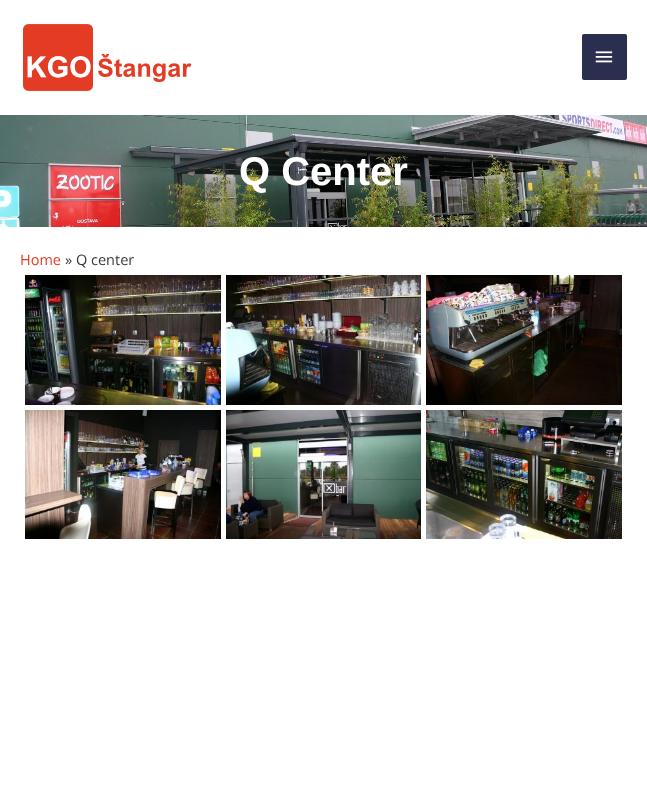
<?xml version="1.0" encoding="UTF-8"?>
<svg xmlns="http://www.w3.org/2000/svg" xmlns:xlink="http://www.w3.org/1999/xlink" width="647" height="810">
  <rect width="100%" height="100%" fill="#ffffff" />
  <image x="23" y="24" width="169" height="67" xlink:href="image1.png" />
  <rect x="582" y="34" width="45" height="46" rx="2" fill="#2a2f4f" />
  <image x="595" y="51" width="18" height="12" xlink:href="image2.png" />
  <image x="0" y="115" width="647" height="112" xlink:href="image3.png" />
  <image x="25" y="275" width="196" height="130" xlink:href="image4.png" />
  <image x="25" y="410" width="196" height="129" xlink:href="image5.png" />
  <image x="226" y="275" width="195" height="130" xlink:href="image6.png" />
  <image x="226" y="410" width="195" height="129" xlink:href="image7.png" />
  <image x="426" y="275" width="196" height="130" xlink:href="image8.png" />
  <image x="426" y="410" width="196" height="129" xlink:href="image9.png" />
  <text x="239" y="185" style="font-family: Liberation Sans; font-size: 40px; font-weight: bold; fill: #ffffff">Q Center</text>
  <text x="20" y="265" style="font-family: Open Sans; font-size: 14.5px; fill: #e33b24">Home</text>
  <text x="65" y="265" style="font-family: Open Sans; font-size: 14.5px; fill: #3a3a3a">» Q center</text>
</svg>
